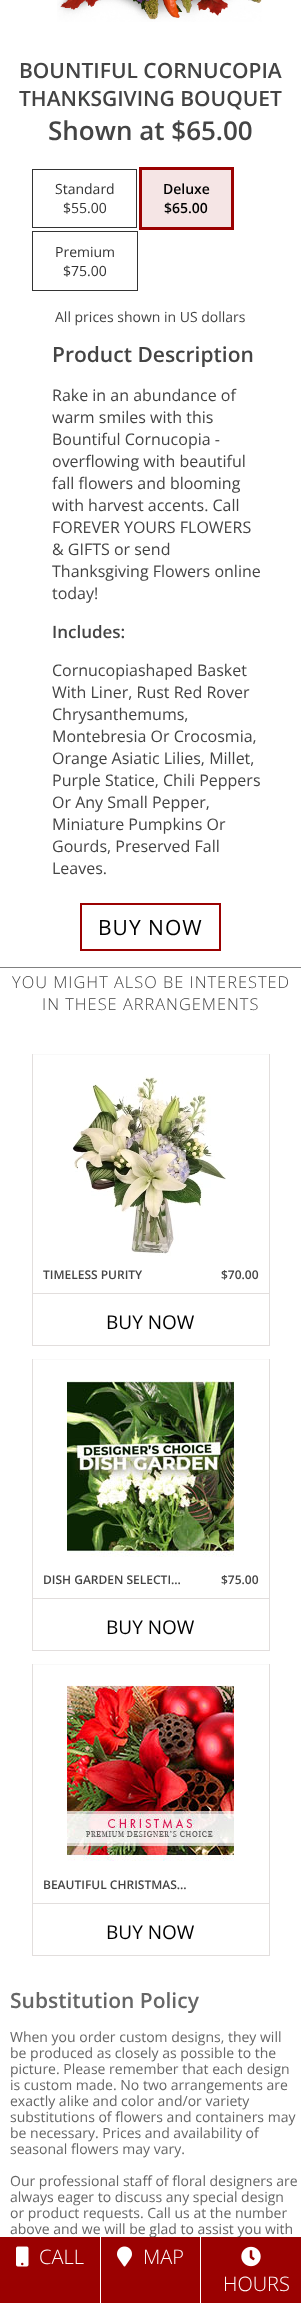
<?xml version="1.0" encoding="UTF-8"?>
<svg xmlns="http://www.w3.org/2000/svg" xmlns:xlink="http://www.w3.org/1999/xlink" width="301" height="2303">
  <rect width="100%" height="100%" fill="#ffffff" />
  <image x="57" y="0" width="205" height="22" xlink:href="image1.png" />
  <rect x="32.5" y="169.5" width="104" height="58" fill="none" stroke="#333333" />
  <rect x="140.5" y="168.5" width="92" height="60" fill="none" stroke="#9b0101" stroke-width="3" />
  <rect x="142" y="170" width="89" height="57" fill="#f5e5e5" />
  <rect x="32.5" y="231.5" width="105" height="59" fill="none" stroke="#333333" />
  <rect x="81" y="904" width="139" height="46" fill="none" stroke="#9b0101" stroke-width="2" />
  <rect y="967" width="301" height="1" fill="#808080" />
  <rect x="32" y="1054" width="238" height="1" fill="#f9f9f9" />
  <rect x="269" y="1054" width="1" height="292" fill="#e2dedd" />
  <rect x="32" y="1345" width="238" height="1" fill="#e2dedd" />
  <rect x="32" y="1054" width="1" height="292" fill="#e2dedd" />
  <image x="72" y="1077" width="154" height="179" xlink:href="image2.png" />
  <rect x="33" y="1293" width="236" height="1" fill="#e2dedd" />
  <rect x="32" y="1359" width="238" height="1" fill="#f9f9f9" />
  <rect x="269" y="1359" width="1" height="292" fill="#e2dedd" />
  <rect x="32" y="1650" width="238" height="1" fill="#e2dedd" />
  <rect x="32" y="1359" width="1" height="292" fill="#e2dedd" />
  <image x="67" y="1381" width="167" height="176" xlink:href="image3.png" />
  <rect x="33" y="1598" width="236" height="1" fill="#e2dedd" />
  <rect x="32" y="1664" width="238" height="1" fill="#f9f9f9" />
  <rect x="269" y="1664" width="1" height="292" fill="#e2dedd" />
  <rect x="32" y="1955" width="238" height="1" fill="#e2dedd" />
  <rect x="32" y="1664" width="1" height="292" fill="#e2dedd" />
  <image x="67" y="1685" width="167" height="176" xlink:href="image4.png" />
  <rect x="33" y="1903" width="236" height="1" fill="#e2dedd" />
  <text x="19" y="78" style="font-family: Open Sans; font-size: 21px; font-weight: 600; fill: #444444">BOUNTIFUL CORNUCOPIA</text>
  <text x="19" y="106" style="font-family: Open Sans; font-size: 21px; font-weight: 600; fill: #444444">THANKSGIVING BOUQUET</text>
  <text x="48" y="140" style="font-family: Open Sans; font-size: 26px; font-weight: 600; fill: #444444">Shown at $65.00</text>
  <text x="55" y="194" style="font-family: Open Sans; font-size: 14px; fill: #333333">Standard</text>
  <text x="63" y="213" style="font-family: Open Sans; font-size: 14px; fill: #333333">$55.00</text>
  <text x="163" y="194" style="font-family: Open Sans; font-size: 14px; font-weight: 600; fill: #000000">Deluxe</text>
  <text x="164" y="213" style="font-family: Open Sans; font-size: 14px; font-weight: 600; fill: #000000">$65.00</text>
  <text x="55" y="257" style="font-family: Open Sans; font-size: 14px; fill: #333333">Premium</text>
  <text x="63" y="276" style="font-family: Open Sans; font-size: 14px; fill: #333333">$75.00</text>
  <text x="55" y="322" style="font-family: Open Sans; font-size: 14px; fill: #444444">All prices shown in US dollars</text>
  <text x="52" y="362" style="font-family: Open Sans; font-size: 21px; font-weight: 600; fill: #444444">Product Description</text>
  <text x="52" y="401" style="font-family: Open Sans; font-size: 16px; fill: #444444">Rake in an abundance of</text>
  <text x="52" y="423" style="font-family: Open Sans; font-size: 16px; fill: #444444">warm smiles with this</text>
  <text x="52" y="445" style="font-family: Open Sans; font-size: 16px; fill: #444444">Bountiful Cornucopia -</text>
  <text x="52" y="467" style="font-family: Open Sans; font-size: 16px; fill: #444444">overflowing with beautiful</text>
  <text x="52" y="489" style="font-family: Open Sans; font-size: 16px; fill: #444444">fall flowers and blooming</text>
  <text x="52" y="511" style="font-family: Open Sans; font-size: 16px; fill: #444444">with harvest accents. Call</text>
  <text x="52" y="533" style="font-family: Open Sans; font-size: 16px; fill: #444444">FOREVER YOURS FLOWERS</text>
  <text x="52" y="555" style="font-family: Open Sans; font-size: 16px; fill: #444444">&amp; GIFTS or send</text>
  <text x="52" y="577" style="font-family: Open Sans; font-size: 16px; fill: #444444">Thanksgiving Flowers online</text>
  <text x="52" y="599" style="font-family: Open Sans; font-size: 16px; fill: #444444">today!</text>
  <text x="52" y="638" style="font-family: Open Sans; font-size: 17px; font-weight: 600; fill: #444444">Includes:</text>
  <text x="52" y="676" style="font-family: Open Sans; font-size: 16px; fill: #444444">Cornucopiashaped Basket</text>
  <text x="52" y="698" style="font-family: Open Sans; font-size: 16px; fill: #444444">With Liner, Rust Red Rover</text>
  <text x="52" y="720" style="font-family: Open Sans; font-size: 16px; fill: #444444">Chrysanthemums,</text>
  <text x="52" y="742" style="font-family: Open Sans; font-size: 16px; fill: #444444">Montebresia Or Crocosmia,</text>
  <text x="52" y="764" style="font-family: Open Sans; font-size: 16px; fill: #444444">Orange Asiatic Lilies, Millet,</text>
  <text x="52" y="786" style="font-family: Open Sans; font-size: 16px; fill: #444444">Purple Statice, Chili Peppers</text>
  <text x="52" y="808" style="font-family: Open Sans; font-size: 16px; fill: #444444">Or Any Small Pepper,</text>
  <text x="52" y="830" style="font-family: Open Sans; font-size: 16px; fill: #444444">Miniature Pumpkins Or</text>
  <text x="52" y="852" style="font-family: Open Sans; font-size: 16px; fill: #444444">Gourds, Preserved Fall</text>
  <text x="52" y="874" style="font-family: Open Sans; font-size: 16px; fill: #444444">Leaves.</text>
  <text x="98" y="935" style="font-family: Open Sans; font-size: 21px; letter-spacing: 1px; fill: #000000">BUY NOW</text>
  <text x="12" y="988" style="font-family: Open Sans; font-size: 16.4px; font-weight: 300; letter-spacing: 1px; fill: #444444">YOU MIGHT ALSO BE INTERESTED</text>
  <text x="42" y="1010" style="font-family: Open Sans; font-size: 16.4px; font-weight: 300; letter-spacing: 1px; fill: #444444">IN THESE ARRANGEMENTS</text>
  <text x="43" y="1279" style="font-family: Open Sans; font-size: 12px; font-weight: 600; fill: #444444">TIMELESS PURITY</text>
  <text x="221" y="1279" style="font-family: Open Sans; font-size: 12px; font-weight: 600; fill: #444444">$70.00</text>
  <text x="106" y="1329" style="font-family: Open Sans; font-size: 19px; fill: #000000">BUY NOW</text>
  <text x="43" y="1584" style="font-family: Open Sans; font-size: 12px; font-weight: 600; fill: #444444">DISH GARDEN SELECTI…</text>
  <text x="221" y="1584" style="font-family: Open Sans; font-size: 12px; font-weight: 600; fill: #444444">$75.00</text>
  <text x="106" y="1634" style="font-family: Open Sans; font-size: 19px; fill: #000000">BUY NOW</text>
  <text x="43" y="1889" style="font-family: Open Sans; font-size: 12px; font-weight: 600; fill: #444444">BEAUTIFUL CHRISTMAS…</text>
  <text x="106" y="1939" style="font-family: Open Sans; font-size: 19px; fill: #000000">BUY NOW</text>
  <text x="10" y="2008" style="font-family: Open Sans; font-size: 21px; font-weight: 600; fill: #666666">Substitution Policy</text>
  <text x="10" y="2042" style="font-family: Open Sans; font-size: 14px; fill: #666666">When you order custom designs, they will</text>
  <text x="10" y="2058" style="font-family: Open Sans; font-size: 14px; fill: #666666">be produced as closely as possible to the</text>
  <text x="10" y="2074" style="font-family: Open Sans; font-size: 14px; fill: #666666">picture. Please remember that each design</text>
  <text x="10" y="2090" style="font-family: Open Sans; font-size: 14px; fill: #666666">is custom made. No two arrangements are</text>
  <text x="10" y="2106" style="font-family: Open Sans; font-size: 14px; fill: #666666">exactly alike and color and/or variety</text>
  <text x="10" y="2122" style="font-family: Open Sans; font-size: 14px; fill: #666666">substitutions of flowers and containers may</text>
  <text x="10" y="2138" style="font-family: Open Sans; font-size: 14px; fill: #666666">be necessary. Prices and availability of</text>
  <text x="10" y="2154" style="font-family: Open Sans; font-size: 14px; fill: #666666">seasonal flowers may vary.</text>
  <text x="10" y="2186" style="font-family: Open Sans; font-size: 14px; fill: #666666">Our professional staff of floral designers are</text>
  <text x="10" y="2202" style="font-family: Open Sans; font-size: 14px; fill: #666666">always eager to discuss any special design</text>
  <text x="10" y="2218" style="font-family: Open Sans; font-size: 14px; fill: #666666">or product requests. Call us at the number</text>
  <text x="10" y="2234" style="font-family: Open Sans; font-size: 14px; fill: #666666">above and we will be glad to assist you with</text>
  <rect y="2237" width="100" height="66" fill="#9b0101" />
  <image x="16" y="2246" width="13" height="21" xlink:href="image5.png" />
  <text x="39" y="2264" style="font-family: Open Sans; font-size: 20px; font-weight: 300; fill: #ffffff">CALL</text>
  <rect x="101" y="2237" width="99" height="66" fill="#9b0101" />
  <image x="117" y="2246" width="15" height="21" xlink:href="image6.png" />
  <text x="143" y="2264" style="font-family: Open Sans; font-size: 20px; font-weight: 300; fill: #ffffff">MAP</text>
  <rect x="201" y="2237" width="100" height="66" fill="#9b0101" />
  <image x="241" y="2246" width="20" height="21" xlink:href="image7.png" />
  <text x="223" y="2291" style="font-family: Open Sans; font-size: 20px; font-weight: 300; fill: #ffffff">HOURS</text>
</svg>
